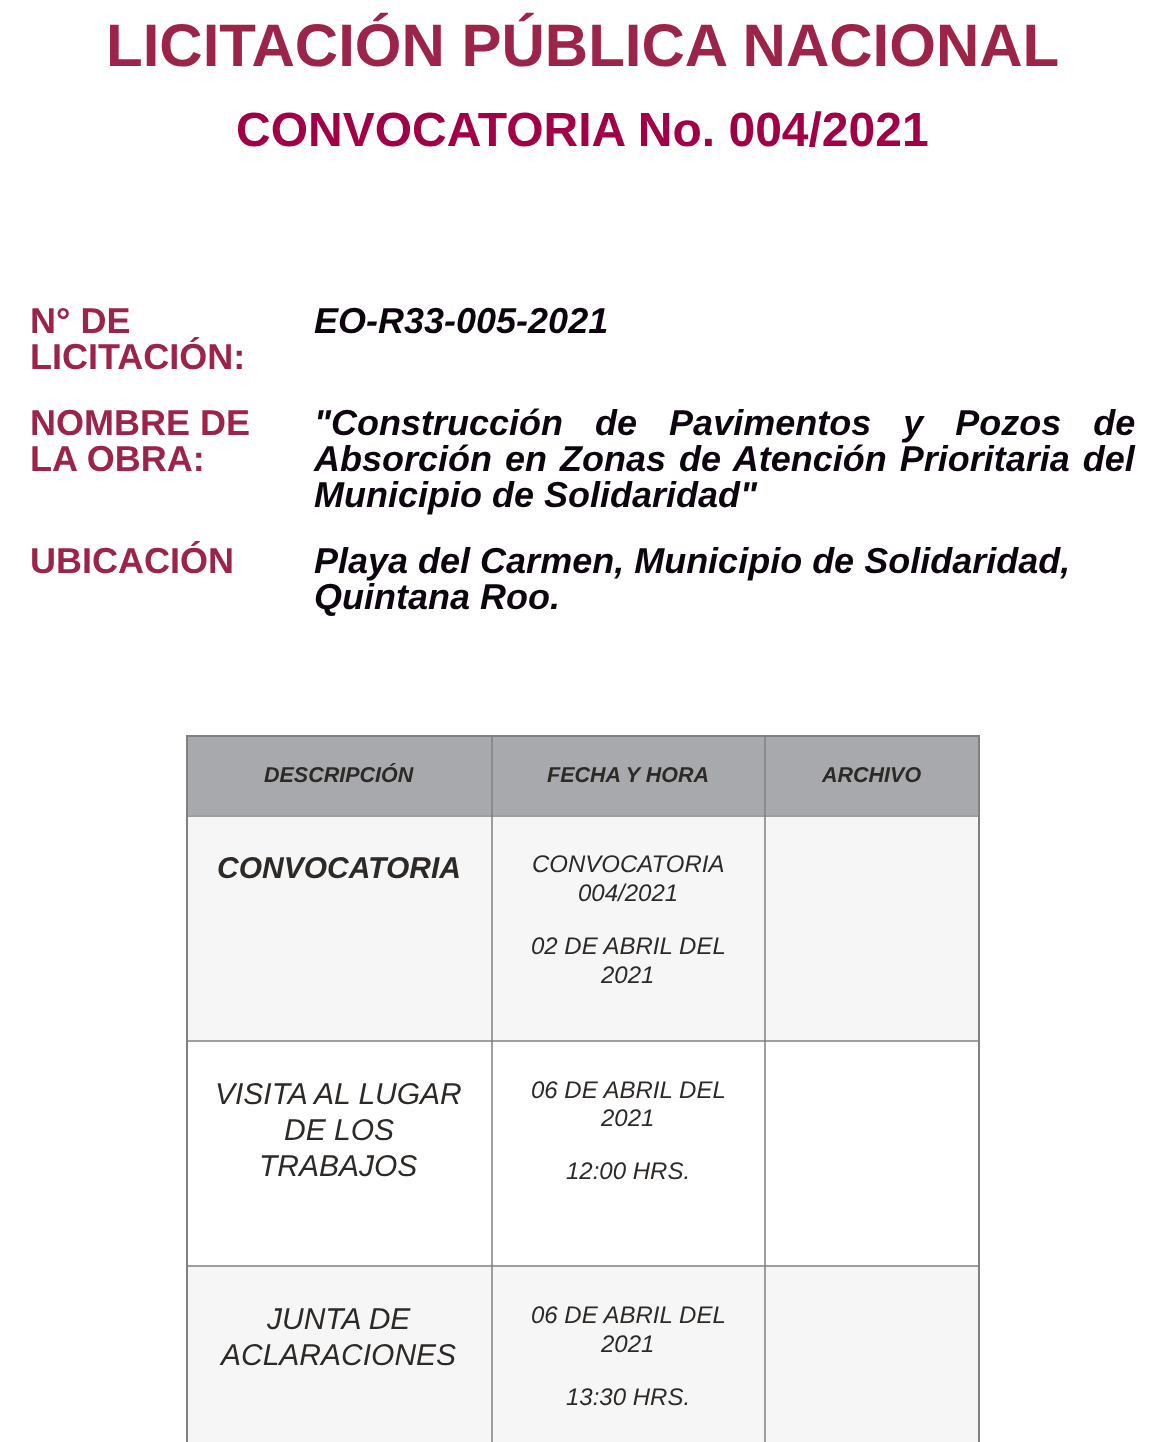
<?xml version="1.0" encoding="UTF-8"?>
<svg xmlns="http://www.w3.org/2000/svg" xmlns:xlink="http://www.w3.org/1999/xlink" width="1165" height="1442">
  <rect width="100%" height="100%" fill="#ffffff" />
  <rect x="186" y="1040" width="306" height="2" fill="#a0a0a0" />
  <rect x="491" y="1040" width="2" height="226" fill="#a0a0a0" />
  <rect x="491" y="1040" width="274" height="2" fill="#a0a0a0" />
  <rect x="491" y="1041" width="2" height="1" fill="#888888" />
  <rect x="491" y="1040" width="2" height="1" fill="#828282" />
  <rect x="491" y="1040" width="1" height="2" fill="#828282" />
  <rect x="764" y="1040" width="2" height="226" fill="#a0a0a0" />
  <rect x="764" y="1040" width="216" height="2" fill="#a0a0a0" />
  <rect x="764" y="1041" width="2" height="1" fill="#888888" />
  <rect x="764" y="1040" width="2" height="1" fill="#828282" />
  <rect x="764" y="1040" width="1" height="2" fill="#828282" />
  <rect x="186" y="735" width="794" height="2" fill="#808080" />
  <rect x="491" y="815" width="2" height="225" fill="#9e9e9e" />
  <rect x="491" y="815" width="274" height="2" fill="#9e9e9e" />
  <rect x="764" y="815" width="2" height="225" fill="#9e9e9e" />
  <rect x="765" y="815" width="215" height="2" fill="#9e9e9e" />
  <rect x="491" y="1265" width="2" height="177" fill="#9e9e9e" />
  <rect x="491" y="1265" width="274" height="2" fill="#9e9e9e" />
  <rect x="764" y="1265" width="2" height="177" fill="#9e9e9e" />
  <rect x="765" y="1265" width="215" height="2" fill="#9e9e9e" />
  <rect x="978" y="735" width="2" height="707" fill="#808080" />
  <rect x="186" y="815" width="305" height="2" fill="#9e9e9e" />
  <rect x="186" y="1265" width="305" height="2" fill="#9e9e9e" />
  <rect x="186" y="735" width="2" height="707" fill="#808080" />
  <rect x="188" y="737" width="790" height="78" fill="#a7a9ac" />
  <rect x="491" y="737" width="2" height="78" fill="#8a8b8b" />
  <rect x="764" y="737" width="2" height="78" fill="#8a8b8b" />
  <rect x="188" y="817" width="303" height="223" fill="#f6f6f6" />
  <rect x="493" y="817" width="271" height="223" fill="#f6f6f6" />
  <rect x="491" y="816" width="2" height="1" fill="#888888" />
  <rect x="491" y="815" width="2" height="1" fill="#828282" />
  <rect x="491" y="815" width="1" height="2" fill="#828282" />
  <rect x="764" y="815" width="1" height="2" fill="#828282" />
  <rect x="766" y="817" width="212" height="223" fill="#f6f6f6" />
  <rect x="765" y="815" width="1" height="2" fill="#888888" />
  <rect x="765" y="815" width="1" height="1" fill="#828282" />
  <rect x="188" y="1267" width="303" height="175" fill="#f6f6f6" />
  <rect x="493" y="1267" width="271" height="175" fill="#f6f6f6" />
  <rect x="491" y="1266" width="2" height="1" fill="#888888" />
  <rect x="491" y="1265" width="2" height="1" fill="#828282" />
  <rect x="491" y="1265" width="1" height="2" fill="#828282" />
  <rect x="764" y="1265" width="1" height="2" fill="#828282" />
  <rect x="766" y="1267" width="212" height="175" fill="#f6f6f6" />
  <rect x="765" y="1265" width="1" height="2" fill="#888888" />
  <rect x="765" y="1265" width="1" height="1" fill="#828282" />
  <text x="106" y="66" style="font-family: Liberation Sans; font-size: 60px; font-weight: bold; fill: #9d2449">LICITACIÓN PÚBLICA NACIONAL</text>
  <text x="236" y="146" style="font-family: Liberation Sans; font-size: 48px; font-weight: bold; fill: #a10046">CONVOCATORIA No. 004/2021</text>
  <text x="30" y="333" style="font-family: Liberation Sans; font-size: 36px; font-weight: bold; fill: #9d2449">N° DE</text>
  <text x="30" y="369" style="font-family: Liberation Sans; font-size: 36px; font-weight: bold; fill: #9d2449">LICITACIÓN:</text>
  <text x="314" y="333" style="font-family: Liberation Sans; font-size: 36px; font-weight: bold; font-style: italic; fill: #0c050d">EO-R33-005-2021</text>
  <text x="30" y="435" style="font-family: Liberation Sans; font-size: 36px; font-weight: bold; fill: #9d2449">NOMBRE DE</text>
  <text x="30" y="471" style="font-family: Liberation Sans; font-size: 36px; font-weight: bold; fill: #9d2449">LA OBRA:</text>
  <text x="314" y="435" word-spacing="22" style="font-family: Liberation Sans; font-size: 36px; font-weight: bold; font-style: italic; fill: #0c050d">"Construcción de Pavimentos y Pozos de</text>
  <text x="314" y="471" word-spacing="3" style="font-family: Liberation Sans; font-size: 36px; font-weight: bold; font-style: italic; fill: #0c050d">Absorción en Zonas de Atención Prioritaria del</text>
  <text x="314" y="507" style="font-family: Liberation Sans; font-size: 36px; font-weight: bold; font-style: italic; fill: #0c050d">Municipio de Solidaridad"</text>
  <text x="30" y="573" style="font-family: Liberation Sans; font-size: 36px; font-weight: bold; fill: #9d2449">UBICACIÓN</text>
  <text x="314" y="573" style="font-family: Liberation Sans; font-size: 36px; font-weight: bold; font-style: italic; fill: #0c050d">Playa del Carmen, Municipio de Solidaridad,</text>
  <text x="314" y="609" style="font-family: Liberation Sans; font-size: 36px; font-weight: bold; font-style: italic; fill: #0c050d">Quintana Roo.</text>
  <text x="264" y="782" style="font-family: Liberation Sans; font-size: 21.5px; font-weight: bold; font-style: italic; fill: #2c2927">DESCRIPCIÓN</text>
  <text x="547" y="782" style="font-family: Liberation Sans; font-size: 21.5px; font-weight: bold; font-style: italic; fill: #2c2927">FECHA Y HORA</text>
  <text x="822" y="782" style="font-family: Liberation Sans; font-size: 21.5px; font-weight: bold; font-style: italic; fill: #2c2927">ARCHIVO</text>
  <text x="217" y="878" style="font-family: Liberation Sans; font-size: 30px; font-weight: bold; font-style: italic; fill: #2c2927">CONVOCATORIA</text>
  <text x="532" y="872" style="font-family: Liberation Sans; font-size: 24px; font-style: italic; fill: #2c2927">CONVOCATORIA</text>
  <text x="578" y="901" style="font-family: Liberation Sans; font-size: 24px; font-style: italic; fill: #2c2927">004/2021</text>
  <text x="531" y="954" style="font-family: Liberation Sans; font-size: 24px; font-style: italic; fill: #2c2927">02 DE ABRIL DEL</text>
  <text x="601" y="983" style="font-family: Liberation Sans; font-size: 24px; font-style: italic; fill: #2c2927">2021</text>
  <text x="215" y="1104" style="font-family: Liberation Sans; font-size: 30px; font-style: italic; fill: #2c2927">VISITA AL LUGAR</text>
  <text x="284" y="1140" style="font-family: Liberation Sans; font-size: 30px; font-style: italic; fill: #2c2927">DE LOS</text>
  <text x="259" y="1176" style="font-family: Liberation Sans; font-size: 30px; font-style: italic; fill: #2c2927">TRABAJOS</text>
  <text x="531" y="1098" style="font-family: Liberation Sans; font-size: 24px; font-style: italic; fill: #2c2927">06 DE ABRIL DEL</text>
  <text x="601" y="1126" style="font-family: Liberation Sans; font-size: 24px; font-style: italic; fill: #2c2927">2021</text>
  <text x="566" y="1179" style="font-family: Liberation Sans; font-size: 24px; font-style: italic; fill: #2c2927">12:00 HRS.</text>
  <text x="267" y="1329" style="font-family: Liberation Sans; font-size: 30px; font-style: italic; fill: #2c2927">JUNTA DE</text>
  <text x="221" y="1365" style="font-family: Liberation Sans; font-size: 30px; font-style: italic; fill: #2c2927">ACLARACIONES</text>
  <text x="531" y="1323" style="font-family: Liberation Sans; font-size: 24px; font-style: italic; fill: #2c2927">06 DE ABRIL DEL</text>
  <text x="601" y="1352" style="font-family: Liberation Sans; font-size: 24px; font-style: italic; fill: #2c2927">2021</text>
  <text x="566" y="1405" style="font-family: Liberation Sans; font-size: 24px; font-style: italic; fill: #2c2927">13:30 HRS.</text>
</svg>
